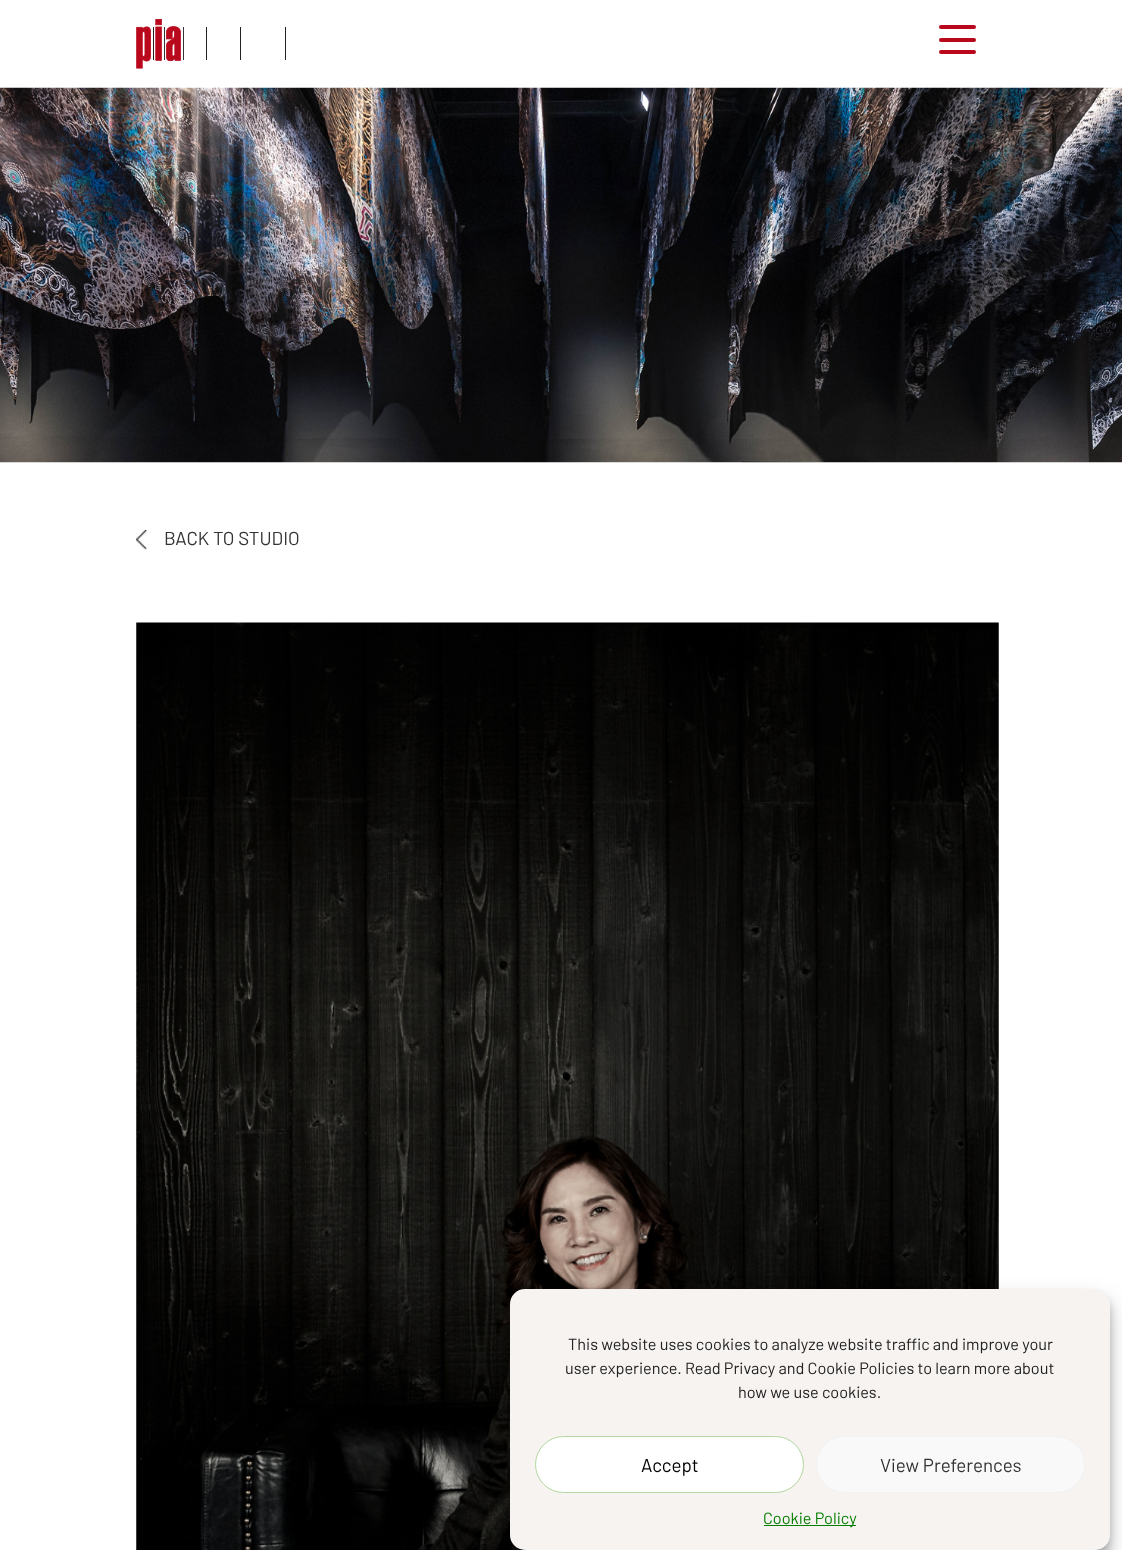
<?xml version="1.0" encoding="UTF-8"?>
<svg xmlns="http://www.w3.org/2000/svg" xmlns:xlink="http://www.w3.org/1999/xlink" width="1122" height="1550">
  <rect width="100%" height="100%" fill="#ffffff" />
  <image x="136" y="19" width="150" height="50" xlink:href="image1.png" />
  <rect x="939" y="25" width="37" height="4" rx="2" fill="#b9081c" />
  <rect x="939" y="38" width="37" height="4" rx="2" fill="#b9081c" />
  <rect x="939" y="50" width="37" height="4" rx="2" fill="#b9081c" />
  <image x="0" y="87" width="1122" height="376" xlink:href="image2.png" />
  <image x="136" y="530" width="11" height="20" xlink:href="image3.png" />
  <image x="136" y="622" width="863" height="928" xlink:href="image4.png" />
  <rect x="510" y="1296" width="600" height="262" rx="15" fill="#000000" fill-opacity="0.23" filter="blur(4px)" />
  <rect x="510" y="1301" width="600" height="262" rx="15" fill="#000000" fill-opacity="0.19" filter="blur(12.5px)" />
  <rect x="510" y="1289" width="600" height="261" rx="15" fill="#f6f3f1" />
  <rect x="535.5" y="1436.5" width="268" height="56" rx="28" fill="#ffffff" stroke="#b4d6a0" />
  <rect x="816.5" y="1436.5" width="268" height="56" rx="28" fill="#f9f9f9" stroke="#f2f2f2" />
  <rect x="764" y="1525" width="92" height="1" fill="#057f01" />
  <text x="164" y="545" style="font-family: Barlow; font-size: 18.75px; fill: #333333">BACK TO STUDIO</text>
  <text x="568" y="1350" style="font-family: Barlow; font-size: 16.25px; fill: #222222">This website uses cookies to analyze website traffic and improve your</text>
  <text x="565" y="1374" style="font-family: Barlow; font-size: 16.25px; fill: #222222">user experience. Read Privacy and Cookie Policies to learn more about</text>
  <text x="738" y="1398" style="font-family: Barlow; font-size: 16.25px; fill: #222222">how we use cookies.</text>
  <text x="641" y="1472" style="font-family: Barlow; font-size: 18.75px; fill: #000000">Accept</text>
  <text x="880" y="1472" style="font-family: Barlow; font-size: 18.75px; fill: #333333">View Preferences</text>
  <text x="763" y="1524" style="font-family: Barlow; font-size: 16.25px; fill: #057f01">Cookie Policy</text>
</svg>
